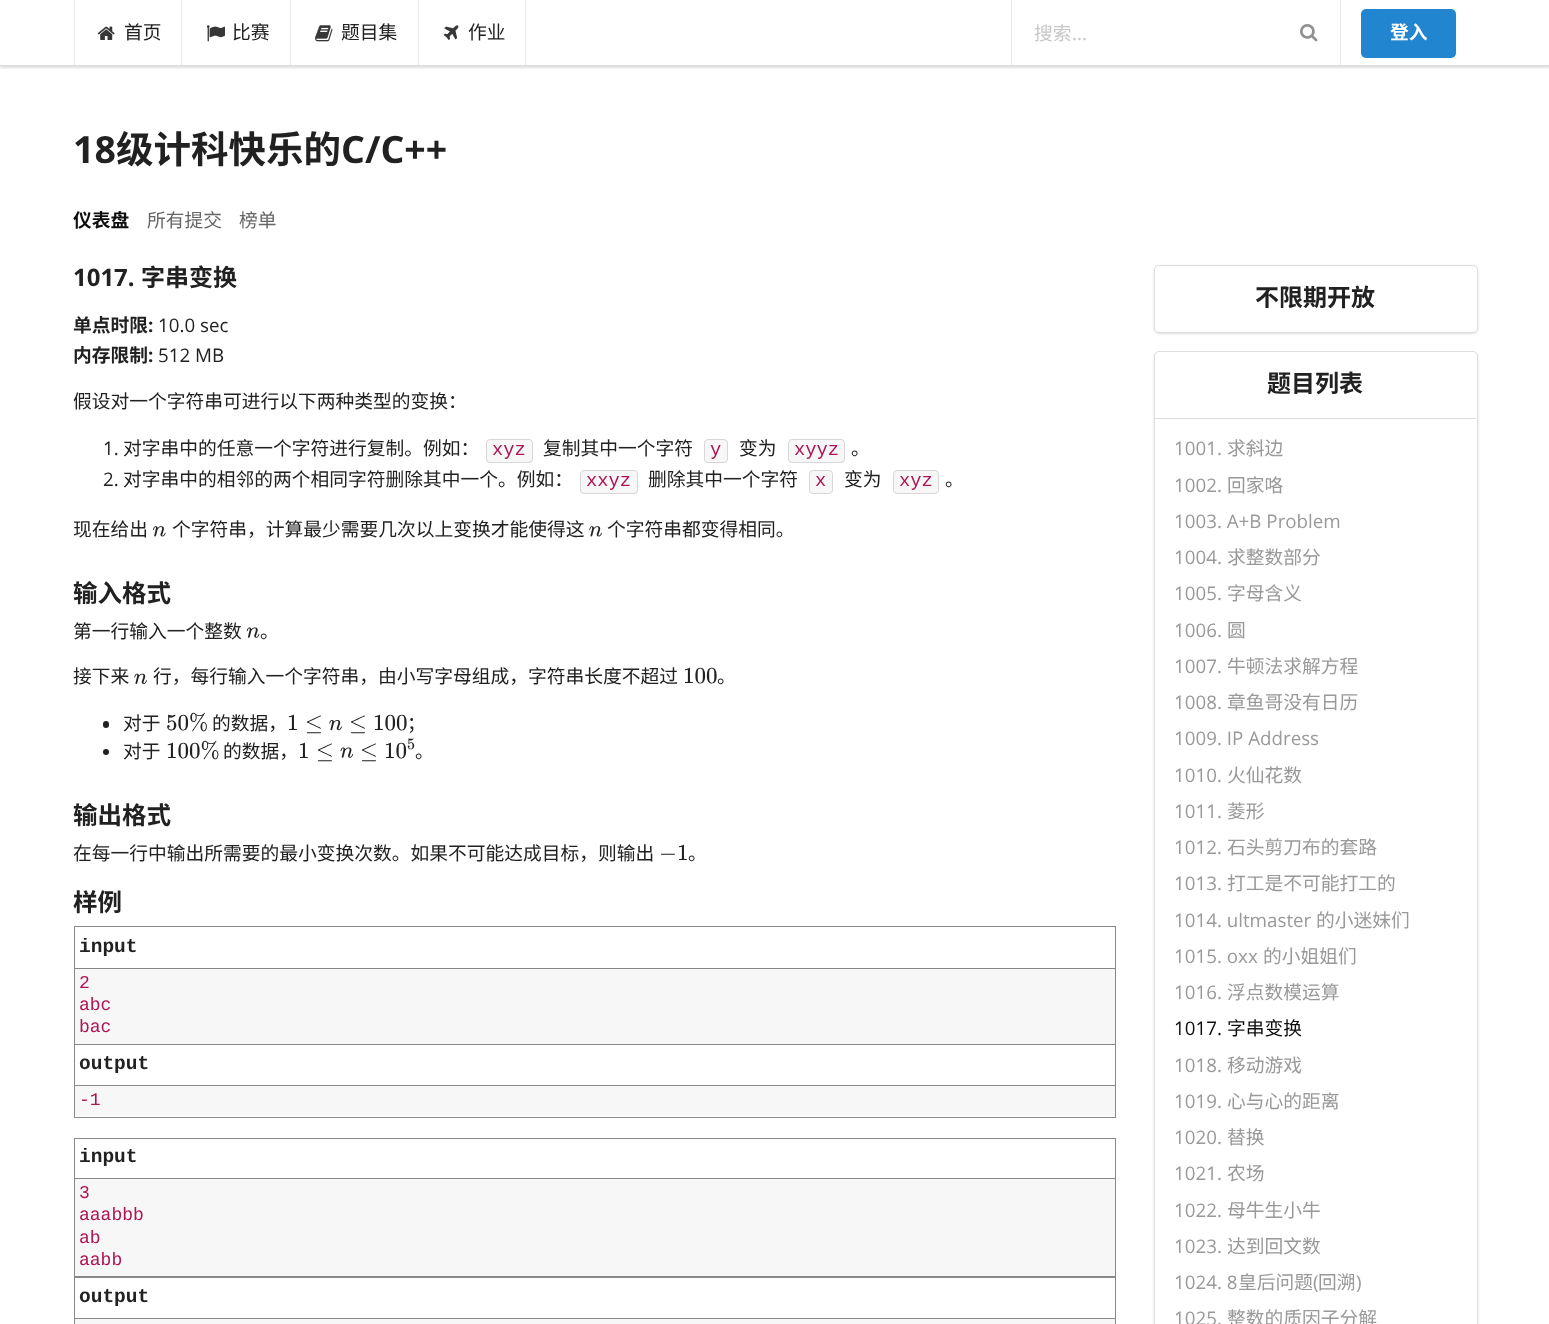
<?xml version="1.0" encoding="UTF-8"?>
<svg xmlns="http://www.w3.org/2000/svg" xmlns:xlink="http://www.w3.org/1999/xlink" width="1549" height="1324">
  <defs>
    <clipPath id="clip1"><rect x="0" y="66" width="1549" height="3" /></clipPath>
    <clipPath id="clip2"><path d="M 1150 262 h 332 v 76 h -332 z m 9 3 h 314 c 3 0 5 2 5 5 v 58 c 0 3 -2 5 -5 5 h -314 c -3 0 -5 -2 -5 -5 v -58 c 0 -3 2 -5 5 -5 z" clip-rule="evenodd" /></clipPath>
    <clipPath id="clip3"><path d="M 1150 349 h 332 v 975 h -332 z m 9 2 h 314 c 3 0 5 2 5 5 v 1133 c 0 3 -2 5 -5 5 h -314 c -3 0 -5 -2 -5 -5 v -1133 c 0 -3 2 -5 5 -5 z" clip-rule="evenodd" /></clipPath>
  </defs>
  <rect width="100%" height="100%" fill="#ffffff" />
  <g clip-path="url(#clip1)">
    <rect y="1" width="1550" height="67" fill="#222426" fill-opacity="0.15" filter="blur(1px)" />
  </g>
  <rect y="65" width="1549" height="1" fill="#dedede" />
  <rect x="74" width="1" height="65" fill="#e9e9e9" />
  <image x="97" y="26" width="18" height="14" xlink:href="image1.png" />
  <rect x="181" width="1" height="65" fill="#e9e9e9" />
  <image x="206" y="25" width="19" height="17" xlink:href="image2.png" />
  <rect x="290" width="1" height="65" fill="#e9e9e9" />
  <image x="315" y="25" width="18" height="17" xlink:href="image3.png" />
  <rect x="418" width="1" height="65" fill="#e9e9e9" />
  <image x="443" y="25" width="16" height="15" xlink:href="image4.png" />
  <rect x="525" width="1" height="65" fill="#e9e9e9" />
  <rect x="1011" width="1" height="65" fill="#e9e9e9" />
  <image x="1300" y="24" width="18" height="18" xlink:href="image5.png" />
  <rect x="1340" width="1" height="65" fill="#e9e9e9" />
  <rect x="1361" y="9" width="95" height="49" rx="5" fill="#2185d0" />
  <rect x="486.5" y="439.5" width="46" height="23" rx="3.5" fill="#f7f7f7" stroke="#d7d7d7" />
  <rect x="704.5" y="439.5" width="23" height="23" rx="3.5" fill="#f7f7f7" stroke="#d7d7d7" />
  <rect x="788.5" y="439.5" width="56" height="23" rx="3.5" fill="#f7f7f7" stroke="#d7d7d7" />
  <rect x="580.5" y="470.5" width="57" height="23" rx="3.5" fill="#f7f7f7" stroke="#d7d7d7" />
  <rect x="809.5" y="470.5" width="23" height="23" rx="3.5" fill="#f7f7f7" stroke="#d7d7d7" />
  <rect x="893.5" y="470.5" width="45" height="23" rx="3.5" fill="#f7f7f7" stroke="#d7d7d7" />
  <image x="153" y="526" width="13" height="11" xlink:href="image6.png" />
  <image x="589" y="526" width="13" height="11" xlink:href="image7.png" />
  <image x="246" y="627" width="14" height="11" xlink:href="image8.png" />
  <image x="134" y="673" width="13" height="11" xlink:href="image9.png" />
  <rect x="103" y="721" width="6" height="7" rx="3" fill="#212121" />
  <image x="329" y="720" width="13" height="11" xlink:href="image10.png" />
  <circle cx="106" cy="752" r="3" fill="#212121" />
  <image x="340" y="747" width="14" height="11" xlink:href="image11.png" />
  <rect x="74.5" y="926.5" width="1041" height="118" fill="none" stroke="#888888" />
  <rect x="75" y="968" width="1040" height="1" fill="#888888" />
  <rect x="75" y="969" width="1040" height="75" fill="#f7f7f7" />
  <rect x="74.5" y="1044.5" width="1041" height="73" fill="none" stroke="#888888" />
  <rect x="75" y="1085" width="1040" height="1" fill="#888888" />
  <rect x="75" y="1086" width="1040" height="30" fill="#f7f7f7" />
  <rect x="74.5" y="1138.5" width="1041" height="139" fill="none" stroke="#888888" />
  <rect x="75" y="1178" width="1040" height="1" fill="#888888" />
  <rect x="75" y="1179" width="1040" height="97" fill="#f7f7f7" />
  <rect x="74.5" y="1276.5" width="1041" height="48" fill="none" stroke="#888888" />
  <rect x="75" y="1318" width="1040" height="1" fill="#888888" />
  <rect x="75" y="1319" width="1040" height="5" fill="#f7f7f7" />
  <g clip-path="url(#clip2)">
    <rect x="1154" y="266" width="324" height="68" rx="5" fill="#222426" fill-opacity="0.15" filter="blur(1px)" />
  </g>
  <rect x="1154.5" y="265.5" width="323" height="67" rx="4.5" fill="none" stroke="#222426" stroke-opacity="0.15" />
  <rect x="1155" y="266" width="321" height="65" rx="5" fill="#ffffff" />
  <g clip-path="url(#clip3)">
    <rect x="1154" y="353" width="324" height="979" rx="5" fill="#222426" fill-opacity="0.15" filter="blur(1px)" />
  </g>
  <rect x="1154.5" y="351.5" width="323" height="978" rx="4.5" fill="none" stroke="#222426" stroke-opacity="0.15" />
  <rect x="1155" y="418" width="321" height="1" fill="#dedede" />
  <text x="124" y="39" style="font-family: Noto Sans CJK SC; font-size: 18.75px; fill: #212121">首页</text>
  <text x="232" y="39" style="font-family: Noto Sans CJK SC; font-size: 18.75px; fill: #212121">比赛</text>
  <text x="341" y="39" style="font-family: Noto Sans CJK SC; font-size: 18.75px; fill: #212121">题目集</text>
  <text x="468" y="39" style="font-family: Noto Sans CJK SC; font-size: 18.75px; fill: #212121">作业</text>
  <text x="1034" y="40" style="font-family: Noto Sans CJK SC; font-size: 18.75px; fill: #c7c7c7">搜索</text>
  <text x="1072" y="40" style="font-family: Open Sans; font-size: 18.75px; fill: #c7c7c7">...</text>
  <text x="1390" y="39" style="font-family: Noto Sans CJK SC; font-size: 18.75px; font-weight: bold; fill: #ffffff">登入</text>
  <text x="73" y="163" style="font-family: Open Sans; font-size: 37.5px; font-weight: bold; fill: #212121">18</text>
  <text x="116" y="163" style="font-family: Noto Sans CJK SC; font-size: 37.5px; font-weight: bold; fill: #212121">级计科快乐的</text>
  <text x="341" y="163" style="font-family: Open Sans; font-size: 37.5px; font-weight: bold; fill: #212121">C/C++</text>
  <text x="73" y="227" style="font-family: Noto Sans CJK SC; font-size: 18.75px; font-weight: bold; fill: #0d0d0d">仪表盘</text>
  <text x="147" y="227" style="font-family: Noto Sans CJK SC; font-size: 18.75px; fill: #666666">所有提交</text>
  <text x="239" y="227" style="font-family: Noto Sans CJK SC; font-size: 18.75px; fill: #666666">榜单</text>
  <text x="73" y="286" style="font-family: Open Sans; font-size: 24px; font-weight: bold; fill: #212121">1017.</text>
  <text x="141" y="286" style="font-family: Noto Sans CJK SC; font-size: 24px; font-weight: bold; fill: #212121">字串变换</text>
  <text x="73" y="332" style="font-family: Noto Sans CJK SC; font-size: 18.75px; font-weight: bold; fill: #212121">单点时限</text>
  <text x="148" y="332" style="font-family: Open Sans; font-size: 18.75px; font-weight: bold; fill: #212121">:</text>
  <text x="158" y="332" style="font-family: Open Sans; font-size: 18.75px; fill: #212121">10.0 sec</text>
  <text x="73" y="362" style="font-family: Noto Sans CJK SC; font-size: 18.75px; font-weight: bold; fill: #212121">内存限制</text>
  <text x="148" y="362" style="font-family: Open Sans; font-size: 18.75px; font-weight: bold; fill: #212121">:</text>
  <text x="158" y="362" style="font-family: Open Sans; font-size: 18.75px; fill: #212121">512 MB</text>
  <text x="73" y="408" style="font-family: Noto Sans CJK SC; font-size: 18.75px; fill: #212121">假设对一个字符串可进行以下两种类型的变换：</text>
  <text x="103" y="455" style="font-family: Open Sans; font-size: 18.75px; fill: #212121">1.</text>
  <text x="123" y="455" style="font-family: Noto Sans CJK SC; font-size: 18.75px; fill: #212121">对字串中的任意一个字符进行复制。例如：</text>
  <text x="492" y="455" style="font-family: Liberation Mono; font-size: 18.75px; fill: #ad1457">xyz</text>
  <text x="543" y="455" style="font-family: Noto Sans CJK SC; font-size: 18.75px; fill: #212121">复制其中一个字符</text>
  <text x="710" y="455" style="font-family: Liberation Mono; font-size: 18.75px; fill: #ad1457">y</text>
  <text x="739" y="455" style="font-family: Noto Sans CJK SC; font-size: 18.75px; fill: #212121">变为</text>
  <text x="794" y="455" style="font-family: Liberation Mono; font-size: 18.75px; fill: #ad1457">xyyz</text>
  <text x="851" y="455" style="font-family: Noto Sans CJK SC; font-size: 18.75px; fill: #212121">。</text>
  <text x="103" y="486" style="font-family: Open Sans; font-size: 18.75px; fill: #212121">2.</text>
  <text x="123" y="486" style="font-family: Noto Sans CJK SC; font-size: 18.75px; fill: #212121">对字串中的相邻的两个相同字符删除其中一个。例如：</text>
  <text x="586" y="486" style="font-family: Liberation Mono; font-size: 18.75px; fill: #ad1457">xxyz</text>
  <text x="648" y="486" style="font-family: Noto Sans CJK SC; font-size: 18.75px; fill: #212121">删除其中一个字符</text>
  <text x="815" y="486" style="font-family: Liberation Mono; font-size: 18.75px; fill: #ad1457">x</text>
  <text x="844" y="486" style="font-family: Noto Sans CJK SC; font-size: 18.75px; fill: #212121">变为</text>
  <text x="899" y="486" style="font-family: Liberation Mono; font-size: 18.75px; fill: #ad1457">xyz</text>
  <text x="945" y="486" style="font-family: Noto Sans CJK SC; font-size: 18.75px; fill: #212121">。</text>
  <text x="73" y="536" style="font-family: Noto Sans CJK SC; font-size: 18.75px; fill: #212121">现在给出</text>
  <text x="172" y="536" style="font-family: Noto Sans CJK SC; font-size: 18.75px; fill: #212121">个字符串，计算最少需要几次以上变换才能使得这</text>
  <text x="607" y="536" style="font-family: Noto Sans CJK SC; font-size: 18.75px; fill: #212121">个字符串都变得相同。</text>
  <text x="73" y="602" style="font-family: Noto Sans CJK SC; font-size: 24.5px; font-weight: bold; fill: #212121">输入格式</text>
  <text x="73" y="638" style="font-family: Noto Sans CJK SC; font-size: 18.75px; fill: #212121">第一行输入一个整数</text>
  <text x="260" y="638" style="font-family: Noto Sans CJK SC; font-size: 18.75px; fill: #212121">。</text>
  <text x="73" y="683" style="font-family: Noto Sans CJK SC; font-size: 18.75px; fill: #212121">接下来</text>
  <text x="153" y="683" style="font-family: Noto Sans CJK SC; font-size: 18.75px; fill: #212121">行，每行输入一个字符串，由小写字母组成，字符串长度不超过</text>
  <text x="683" y="683" style="font-family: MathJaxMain; font-size: 23px; fill: #212121">100</text>
  <text x="717" y="683" style="font-family: Noto Sans CJK SC; font-size: 18.75px; fill: #212121">。</text>
  <text x="123" y="730" style="font-family: Noto Sans CJK SC; font-size: 18.75px; fill: #212121">对于</text>
  <text x="166" y="730" style="font-family: MathJaxMain; font-size: 23px; fill: #212121">50%</text>
  <text x="212" y="730" style="font-family: Noto Sans CJK SC; font-size: 18.75px; fill: #212121">的数据，</text>
  <text x="287" y="730" style="font-family: MathJaxMain; font-size: 23px; fill: #212121">1</text>
  <text x="305" y="730" style="font-family: MathJaxMain; font-size: 23px; fill: #212121">≤</text>
  <text x="349" y="730" style="font-family: MathJaxMain; font-size: 23px; fill: #212121">≤</text>
  <text x="373" y="730" style="font-family: MathJaxMain; font-size: 23px; fill: #212121">100</text>
  <text x="407" y="730" style="font-family: Noto Sans CJK SC; font-size: 18.75px; fill: #212121">；</text>
  <text x="123" y="758" style="font-family: Noto Sans CJK SC; font-size: 18.75px; fill: #212121">对于</text>
  <text x="166" y="758" style="font-family: MathJaxMain; font-size: 23px; fill: #212121">100%</text>
  <text x="223" y="758" style="font-family: Noto Sans CJK SC; font-size: 18.75px; fill: #212121">的数据，</text>
  <text x="298" y="758" style="font-family: MathJaxMain; font-size: 23px; fill: #212121">1</text>
  <text x="316" y="758" style="font-family: MathJaxMain; font-size: 23px; fill: #212121">≤</text>
  <text x="360" y="758" style="font-family: MathJaxMain; font-size: 23px; fill: #212121">≤</text>
  <text x="384" y="758" style="font-family: MathJaxMain; font-size: 23px; fill: #212121">10</text>
  <text x="407" y="749" style="font-family: MathJaxMain; font-size: 16px; fill: #212121">5</text>
  <text x="415" y="758" style="font-family: Noto Sans CJK SC; font-size: 18.75px; fill: #212121">。</text>
  <text x="73" y="824" style="font-family: Noto Sans CJK SC; font-size: 24.5px; font-weight: bold; fill: #212121">输出格式</text>
  <text x="73" y="860" style="font-family: Noto Sans CJK SC; font-size: 18.75px; fill: #212121">在每一行中输出所需要的最小变换次数。如果不可能达成目标，则输出</text>
  <text x="659" y="860" style="font-family: MathJaxMain; font-size: 23px; fill: #212121">−1</text>
  <text x="688" y="860" style="font-family: Noto Sans CJK SC; font-size: 18.75px; fill: #212121">。</text>
  <text x="73" y="911" style="font-family: Noto Sans CJK SC; font-size: 24.5px; font-weight: bold; fill: #212121">样例</text>
  <text x="79" y="952" style="font-family: Liberation Mono; font-size: 19.5px; font-weight: bold; fill: #212121">input</text>
  <text x="79" y="988" style="font-family: Liberation Mono; font-size: 18px; fill: #ad1457">2</text>
  <text x="79" y="1010" style="font-family: Liberation Mono; font-size: 18px; fill: #ad1457">abc</text>
  <text x="79" y="1032" style="font-family: Liberation Mono; font-size: 18px; fill: #ad1457">bac</text>
  <text x="79" y="1069" style="font-family: Liberation Mono; font-size: 19.5px; font-weight: bold; fill: #212121">output</text>
  <text x="79" y="1105" style="font-family: Liberation Mono; font-size: 18px; fill: #ad1457">-1</text>
  <text x="79" y="1162" style="font-family: Liberation Mono; font-size: 19.5px; font-weight: bold; fill: #212121">input</text>
  <text x="79" y="1198" style="font-family: Liberation Mono; font-size: 18px; fill: #ad1457">3</text>
  <text x="79" y="1220" style="font-family: Liberation Mono; font-size: 18px; fill: #ad1457">aaabbb</text>
  <text x="79" y="1243" style="font-family: Liberation Mono; font-size: 18px; fill: #ad1457">ab</text>
  <text x="79" y="1265" style="font-family: Liberation Mono; font-size: 18px; fill: #ad1457">aabb</text>
  <text x="79" y="1302" style="font-family: Liberation Mono; font-size: 19.5px; font-weight: bold; fill: #212121">output</text>
  <text x="1255" y="306" style="font-family: Noto Sans CJK SC; font-size: 24px; font-weight: bold; fill: #212121">不限期开放</text>
  <text x="1267" y="392" style="font-family: Noto Sans CJK SC; font-size: 24px; font-weight: bold; fill: #212121">题目列表</text>
  <text x="1174" y="455" style="font-family: Open Sans; font-size: 18.75px; fill: #999999">1001.</text>
  <text x="1227" y="455" style="font-family: Noto Sans CJK SC; font-size: 18.75px; fill: #999999">求斜边</text>
  <text x="1174" y="492" style="font-family: Open Sans; font-size: 18.75px; fill: #999999">1002.</text>
  <text x="1227" y="492" style="font-family: Noto Sans CJK SC; font-size: 18.75px; fill: #999999">回家咯</text>
  <text x="1174" y="528" style="font-family: Open Sans; font-size: 18.75px; fill: #999999">1003. A+B Problem</text>
  <text x="1174" y="564" style="font-family: Open Sans; font-size: 18.75px; fill: #999999">1004.</text>
  <text x="1227" y="564" style="font-family: Noto Sans CJK SC; font-size: 18.75px; fill: #999999">求整数部分</text>
  <text x="1174" y="600" style="font-family: Open Sans; font-size: 18.75px; fill: #999999">1005.</text>
  <text x="1227" y="600" style="font-family: Noto Sans CJK SC; font-size: 18.75px; fill: #999999">字母含义</text>
  <text x="1174" y="637" style="font-family: Open Sans; font-size: 18.75px; fill: #999999">1006.</text>
  <text x="1227" y="637" style="font-family: Noto Sans CJK SC; font-size: 18.75px; fill: #999999">圆</text>
  <text x="1174" y="673" style="font-family: Open Sans; font-size: 18.75px; fill: #999999">1007.</text>
  <text x="1227" y="673" style="font-family: Noto Sans CJK SC; font-size: 18.75px; fill: #999999">牛顿法求解方程</text>
  <text x="1174" y="709" style="font-family: Open Sans; font-size: 18.75px; fill: #999999">1008.</text>
  <text x="1227" y="709" style="font-family: Noto Sans CJK SC; font-size: 18.75px; fill: #999999">章鱼哥没有日历</text>
  <text x="1174" y="745" style="font-family: Open Sans; font-size: 18.75px; fill: #999999">1009. IP Address</text>
  <text x="1174" y="782" style="font-family: Open Sans; font-size: 18.75px; fill: #999999">1010.</text>
  <text x="1227" y="782" style="font-family: Noto Sans CJK SC; font-size: 18.75px; fill: #999999">火仙花数</text>
  <text x="1174" y="818" style="font-family: Open Sans; font-size: 18.75px; fill: #999999">1011.</text>
  <text x="1227" y="818" style="font-family: Noto Sans CJK SC; font-size: 18.75px; fill: #999999">菱形</text>
  <text x="1174" y="854" style="font-family: Open Sans; font-size: 18.75px; fill: #999999">1012.</text>
  <text x="1227" y="854" style="font-family: Noto Sans CJK SC; font-size: 18.75px; fill: #999999">石头剪刀布的套路</text>
  <text x="1174" y="890" style="font-family: Open Sans; font-size: 18.75px; fill: #999999">1013.</text>
  <text x="1227" y="890" style="font-family: Noto Sans CJK SC; font-size: 18.75px; fill: #999999">打工是不可能打工的</text>
  <text x="1174" y="927" style="font-family: Open Sans; font-size: 18.75px; fill: #999999">1014. ultmaster</text>
  <text x="1316" y="927" style="font-family: Noto Sans CJK SC; font-size: 18.75px; fill: #999999">的小迷妹们</text>
  <text x="1174" y="963" style="font-family: Open Sans; font-size: 18.75px; fill: #999999">1015. oxx</text>
  <text x="1263" y="963" style="font-family: Noto Sans CJK SC; font-size: 18.75px; fill: #999999">的小姐姐们</text>
  <text x="1174" y="999" style="font-family: Open Sans; font-size: 18.75px; fill: #999999">1016.</text>
  <text x="1227" y="999" style="font-family: Noto Sans CJK SC; font-size: 18.75px; fill: #999999">浮点数模运算</text>
  <text x="1174" y="1035" style="font-family: Open Sans; font-size: 18.75px; fill: #0d0d0d">1017.</text>
  <text x="1227" y="1035" style="font-family: Noto Sans CJK SC; font-size: 18.75px; fill: #0d0d0d">字串变换</text>
  <text x="1174" y="1072" style="font-family: Open Sans; font-size: 18.75px; fill: #999999">1018.</text>
  <text x="1227" y="1072" style="font-family: Noto Sans CJK SC; font-size: 18.75px; fill: #999999">移动游戏</text>
  <text x="1174" y="1108" style="font-family: Open Sans; font-size: 18.75px; fill: #999999">1019.</text>
  <text x="1227" y="1108" style="font-family: Noto Sans CJK SC; font-size: 18.75px; fill: #999999">心与心的距离</text>
  <text x="1174" y="1144" style="font-family: Open Sans; font-size: 18.75px; fill: #999999">1020.</text>
  <text x="1227" y="1144" style="font-family: Noto Sans CJK SC; font-size: 18.75px; fill: #999999">替换</text>
  <text x="1174" y="1180" style="font-family: Open Sans; font-size: 18.75px; fill: #999999">1021.</text>
  <text x="1227" y="1180" style="font-family: Noto Sans CJK SC; font-size: 18.75px; fill: #999999">农场</text>
  <text x="1174" y="1217" style="font-family: Open Sans; font-size: 18.75px; fill: #999999">1022.</text>
  <text x="1227" y="1217" style="font-family: Noto Sans CJK SC; font-size: 18.75px; fill: #999999">母牛生小牛</text>
  <text x="1174" y="1253" style="font-family: Open Sans; font-size: 18.75px; fill: #999999">1023.</text>
  <text x="1227" y="1253" style="font-family: Noto Sans CJK SC; font-size: 18.75px; fill: #999999">达到回文数</text>
  <text x="1174" y="1289" style="font-family: Open Sans; font-size: 18.75px; fill: #999999">1024. 8</text>
  <text x="1238" y="1289" style="font-family: Noto Sans CJK SC; font-size: 18.75px; fill: #999999">皇后问题</text>
  <text x="1313" y="1289" style="font-family: Open Sans; font-size: 18.75px; fill: #999999">(</text>
  <text x="1318" y="1289" style="font-family: Noto Sans CJK SC; font-size: 18.75px; fill: #999999">回溯</text>
  <text x="1356" y="1289" style="font-family: Open Sans; font-size: 18.75px; fill: #999999">)</text>
  <text x="1174" y="1325" style="font-family: Open Sans; font-size: 18.75px; fill: #999999">1025.</text>
  <text x="1227" y="1325" style="font-family: Noto Sans CJK SC; font-size: 18.75px; fill: #999999">整数的质因子分解</text>
</svg>
